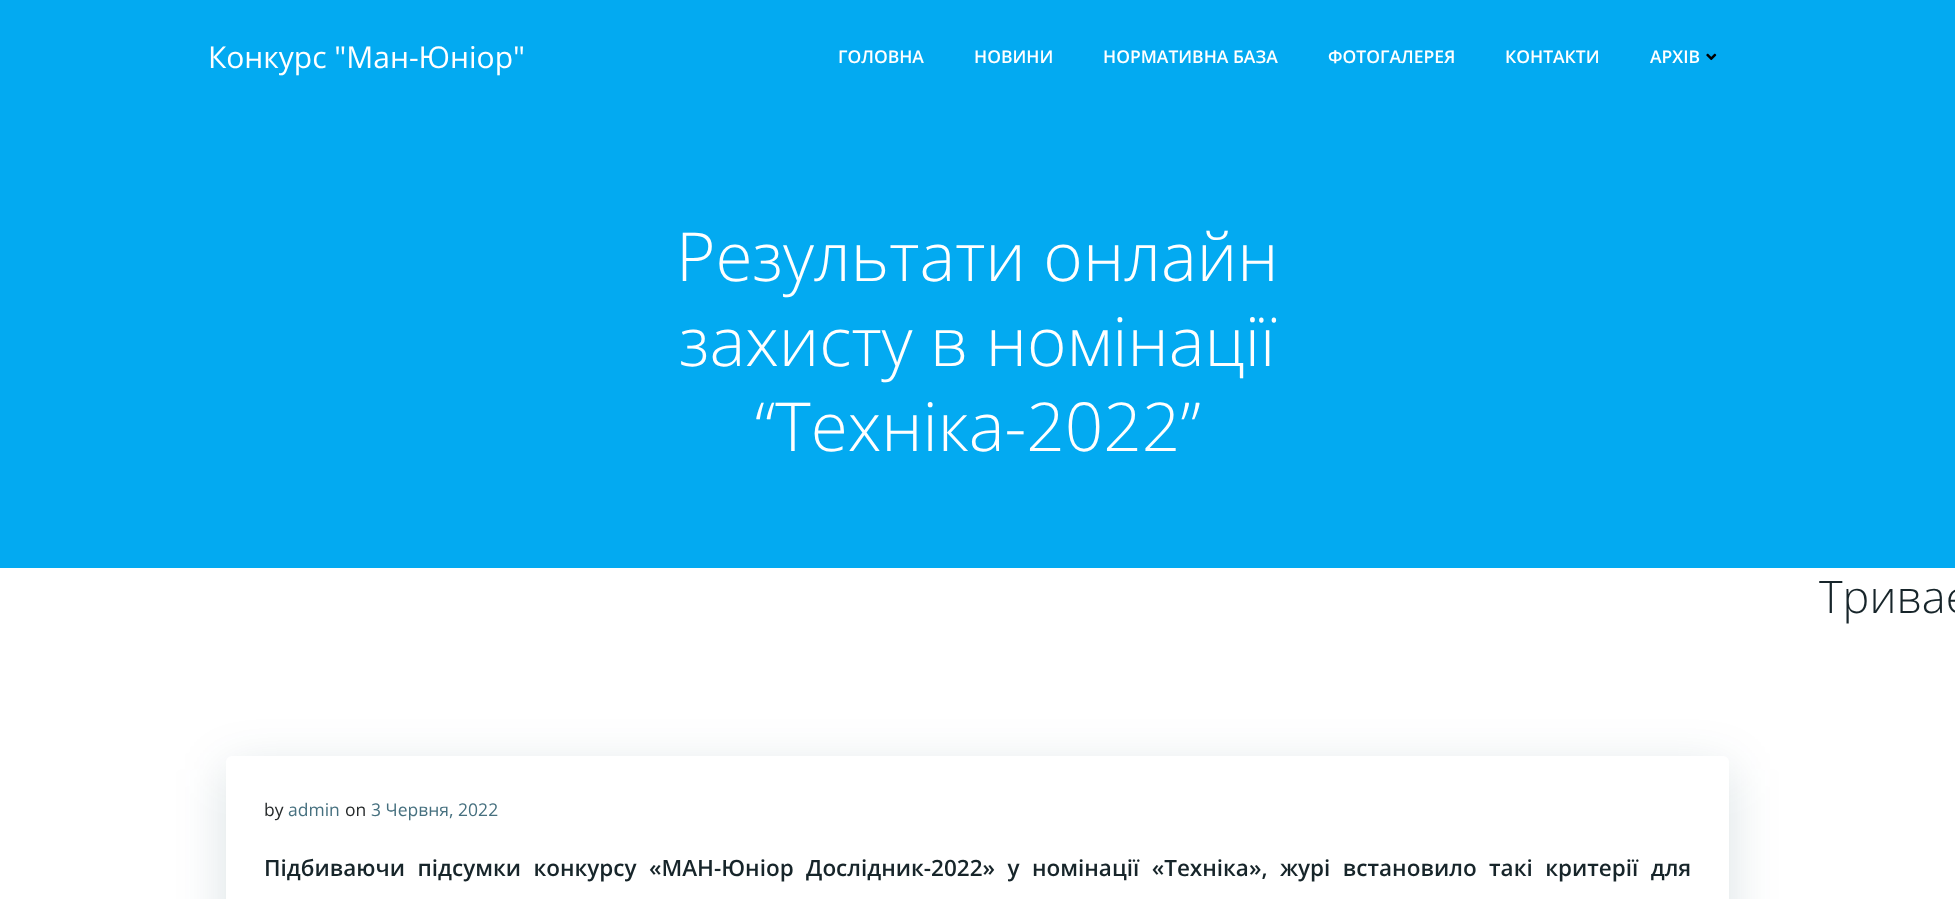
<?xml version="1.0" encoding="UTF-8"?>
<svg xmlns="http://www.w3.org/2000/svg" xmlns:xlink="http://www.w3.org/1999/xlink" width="1955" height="899">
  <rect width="100%" height="100%" fill="#ffffff" />
  <rect width="1955" height="568" fill="#03aaf1" />
  <image x="1706" y="53" width="11" height="8" xlink:href="image1.png" />
  <rect x="226" y="769" width="1503" height="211" rx="6" fill="#01334a" fill-opacity="0.15" filter="blur(25px)" />
  <rect x="226" y="756" width="1503" height="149" rx="6" fill="#ffffff" />
  <text x="208" y="68" style="font-family: Open Sans; font-size: 30px; fill: #ffffff">Конкурс "Ман-Юніор"</text>
  <text x="838" y="63" style="font-family: Open Sans; font-size: 17.5px; font-weight: 600; fill: #ffffff">ГОЛОВНА</text>
  <text x="974" y="63" style="font-family: Open Sans; font-size: 17.5px; font-weight: 600; fill: #ffffff">НОВИНИ</text>
  <text x="1103" y="63" style="font-family: Open Sans; font-size: 17.5px; font-weight: 600; fill: #ffffff">НОРМАТИВНА БАЗА</text>
  <text x="1328" y="63" style="font-family: Open Sans; font-size: 17.5px; font-weight: 600; fill: #ffffff">ФОТОГАЛЕРЕЯ</text>
  <text x="1505" y="63" style="font-family: Open Sans; font-size: 17.5px; font-weight: 600; fill: #ffffff">КОНТАКТИ</text>
  <text x="1650" y="63" style="font-family: Open Sans; font-size: 17.5px; font-weight: 600; fill: #ffffff">АРХІВ</text>
  <text x="676" y="281" style="font-family: Open Sans; font-size: 67.5px; font-weight: 300; fill: #ffffff">Результати онлайн</text>
  <text x="679" y="366" style="font-family: Open Sans; font-size: 67.5px; font-weight: 300; fill: #ffffff">захисту в номінації</text>
  <text x="755" y="451" style="font-family: Open Sans; font-size: 67.5px; font-weight: 300; fill: #ffffff">“Техніка-2022”</text>
  <text x="1819" y="613" style="font-family: Open Sans; font-size: 45px; font-weight: 300; fill: #17252a">Триває</text>
  <text x="264" y="816" style="font-family: Open Sans; font-size: 17.5px; fill: #25292a">by</text>
  <text x="288" y="816" style="font-family: Open Sans; font-size: 17.5px; fill: #46707f">admin</text>
  <text x="345" y="816" style="font-family: Open Sans; font-size: 17.5px; fill: #25292a">on</text>
  <text x="371" y="816" style="font-family: Open Sans; font-size: 17.5px; fill: #46707f">3 Червня, 2022</text>
  <text x="264" y="876" word-spacing="6.6" style="font-family: Open Sans; font-size: 22.5px; font-weight: 600; fill: #17252a">Підбиваючи підсумки конкурсу «МАН-Юніор Дослідник-2022» у номінації «Техніка», журі встановило такі критерії для</text>
</svg>
